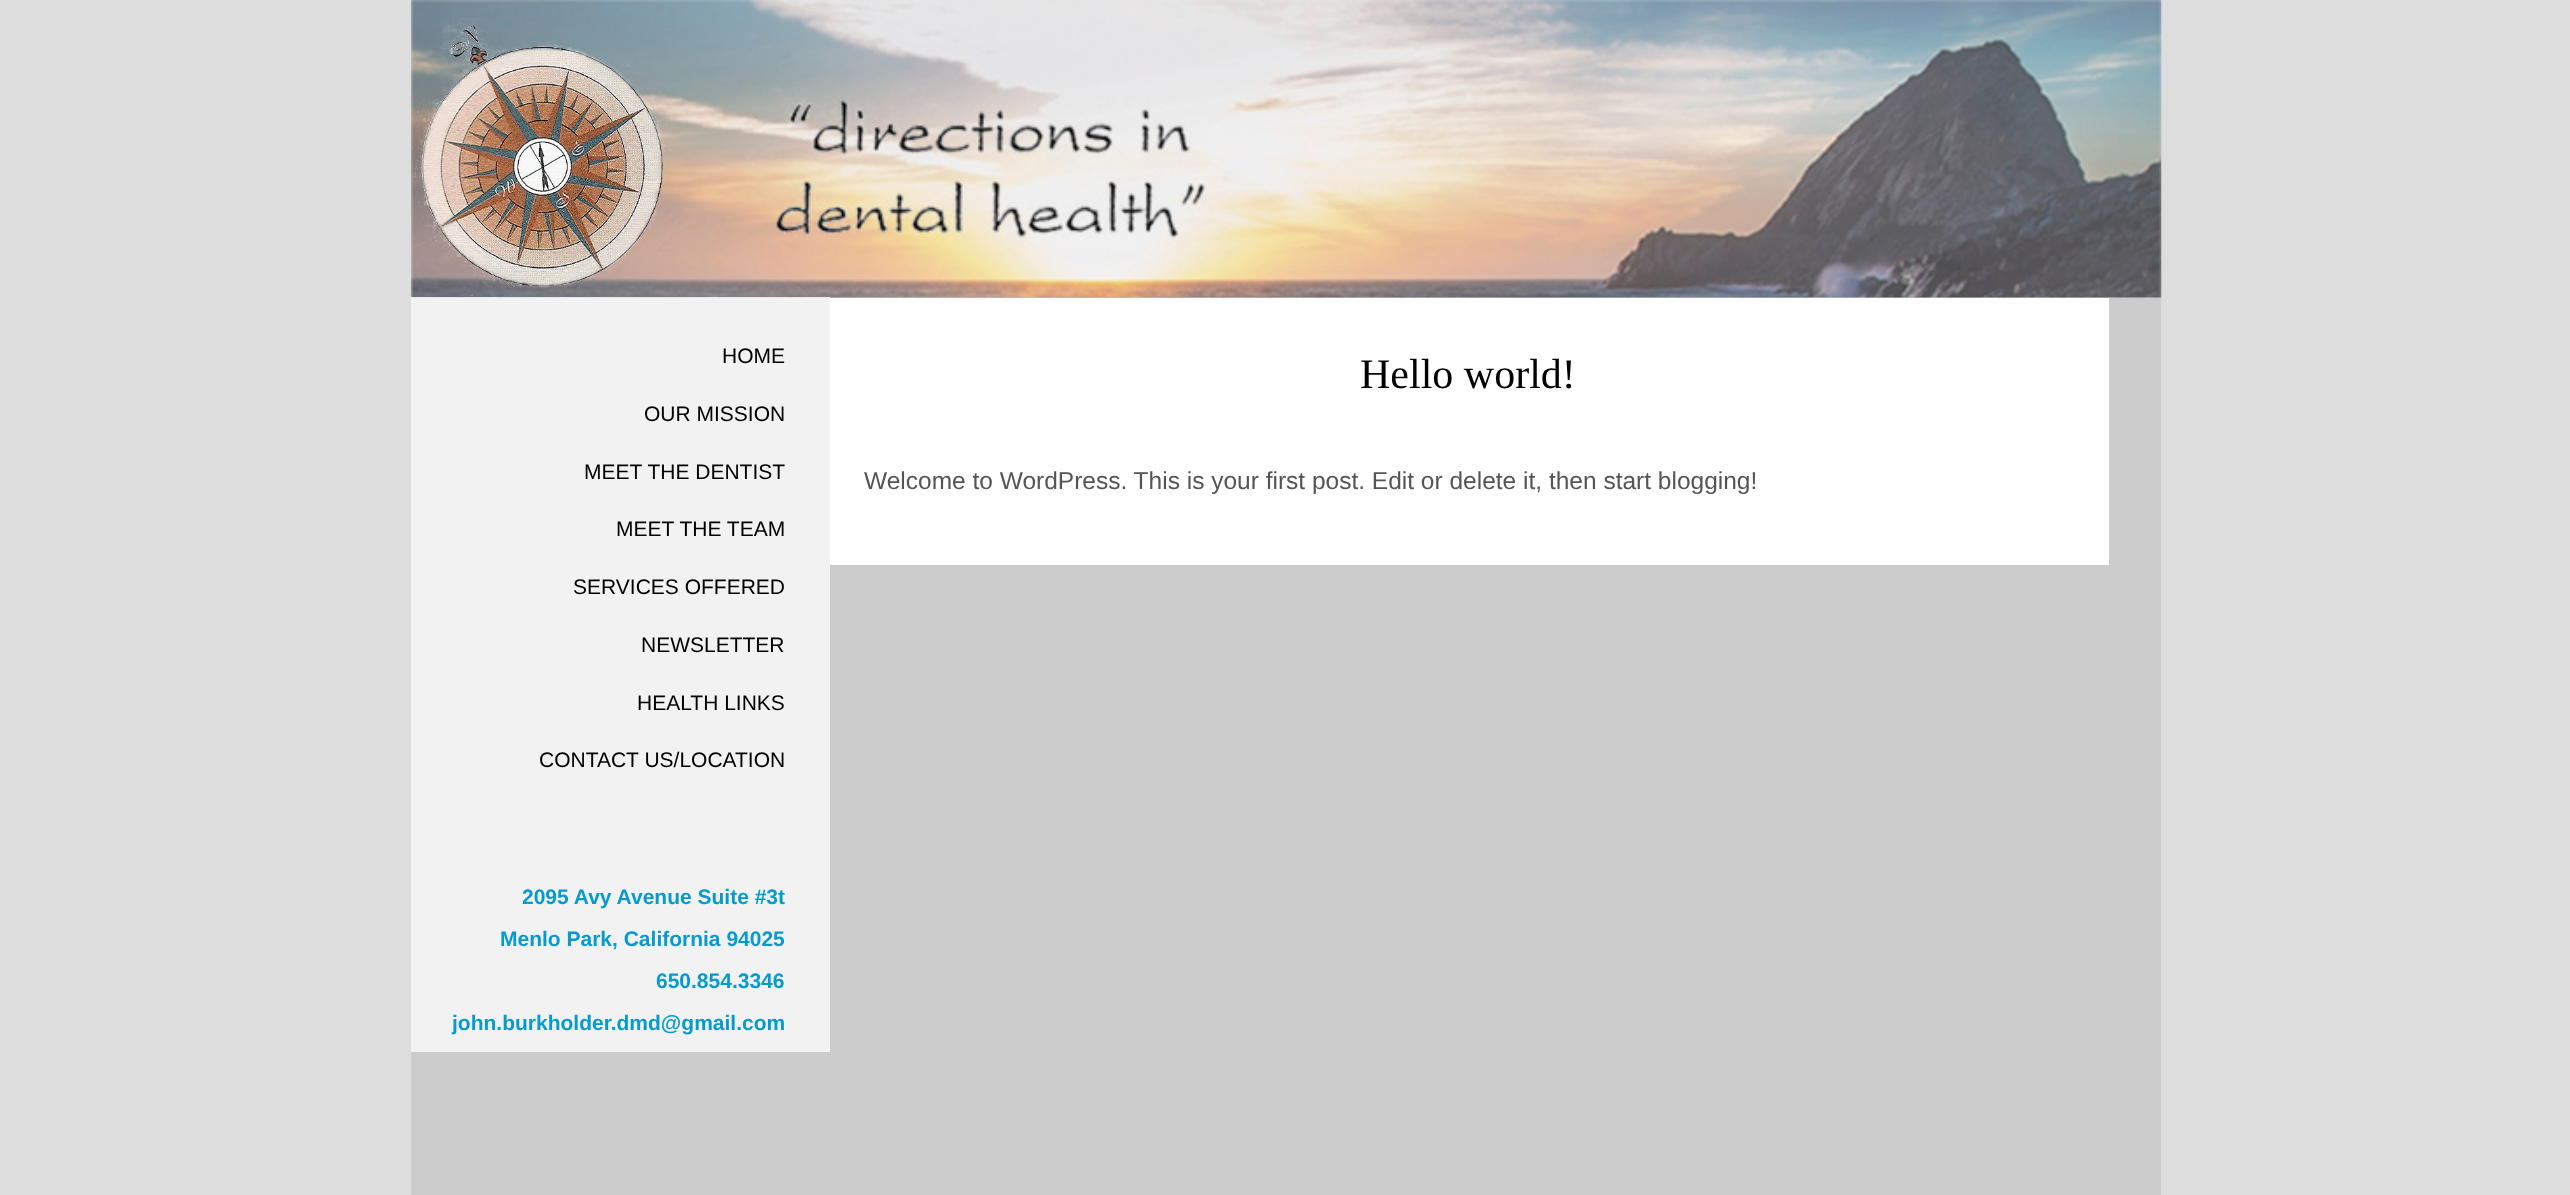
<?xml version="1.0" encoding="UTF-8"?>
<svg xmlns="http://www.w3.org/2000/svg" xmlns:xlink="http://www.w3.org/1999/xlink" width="2570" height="1195">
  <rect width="100%" height="100%" fill="#dddddd" />
  <rect x="411" width="1750" height="1195" fill="#cccccc" />
  <image x="411" y="0" width="1751" height="298" xlink:href="image1.png" />
  <image x="411" y="18" width="263" height="279" xlink:href="image2.png" />
  <rect x="411" y="297" width="419" height="755" fill="#ffffff" fill-opacity="0.75" />
  <rect x="830" y="298" width="1279" height="267" fill="#ffffff" />
  <text x="722" y="363" style="font-family: Liberation Sans; font-size: 21px; fill: #000000">HOME</text>
  <text x="644" y="421" style="font-family: Liberation Sans; font-size: 21px; fill: #000000">OUR MISSION</text>
  <text x="584" y="479" style="font-family: Liberation Sans; font-size: 21px; fill: #000000">MEET THE DENTIST</text>
  <text x="616" y="536" style="font-family: Liberation Sans; font-size: 21px; fill: #000000">MEET THE TEAM</text>
  <text x="573" y="594" style="font-family: Liberation Sans; font-size: 21px; fill: #000000">SERVICES OFFERED</text>
  <text x="641" y="652" style="font-family: Liberation Sans; font-size: 21px; fill: #000000">NEWSLETTER</text>
  <text x="637" y="710" style="font-family: Liberation Sans; font-size: 21px; fill: #000000">HEALTH LINKS</text>
  <text x="539" y="767" style="font-family: Liberation Sans; font-size: 21px; fill: #000000">CONTACT US/LOCATION</text>
  <text x="522" y="904" style="font-family: Liberation Sans; font-size: 21px; font-weight: bold; fill: #079bcd">2095 Avy Avenue Suite #3t</text>
  <text x="500" y="946" style="font-family: Liberation Sans; font-size: 21px; font-weight: bold; fill: #079bcd">Menlo Park, California 94025</text>
  <text x="656" y="988" style="font-family: Liberation Sans; font-size: 21px; font-weight: bold; fill: #079bcd">650.854.3346</text>
  <text x="452" y="1030" style="font-family: Liberation Sans; font-size: 21px; font-weight: bold; fill: #079bcd">john.burkholder.dmd@gmail.com</text>
  <text x="1360" y="388" style="font-family: Liberation Serif; font-size: 42px; fill: #000000">Hello world!</text>
  <text x="864" y="489" style="font-family: Liberation Sans; font-size: 24.5px; fill: #555555">Welcome to WordPress. This is your first post. Edit or delete it, then start blogging!</text>
</svg>
